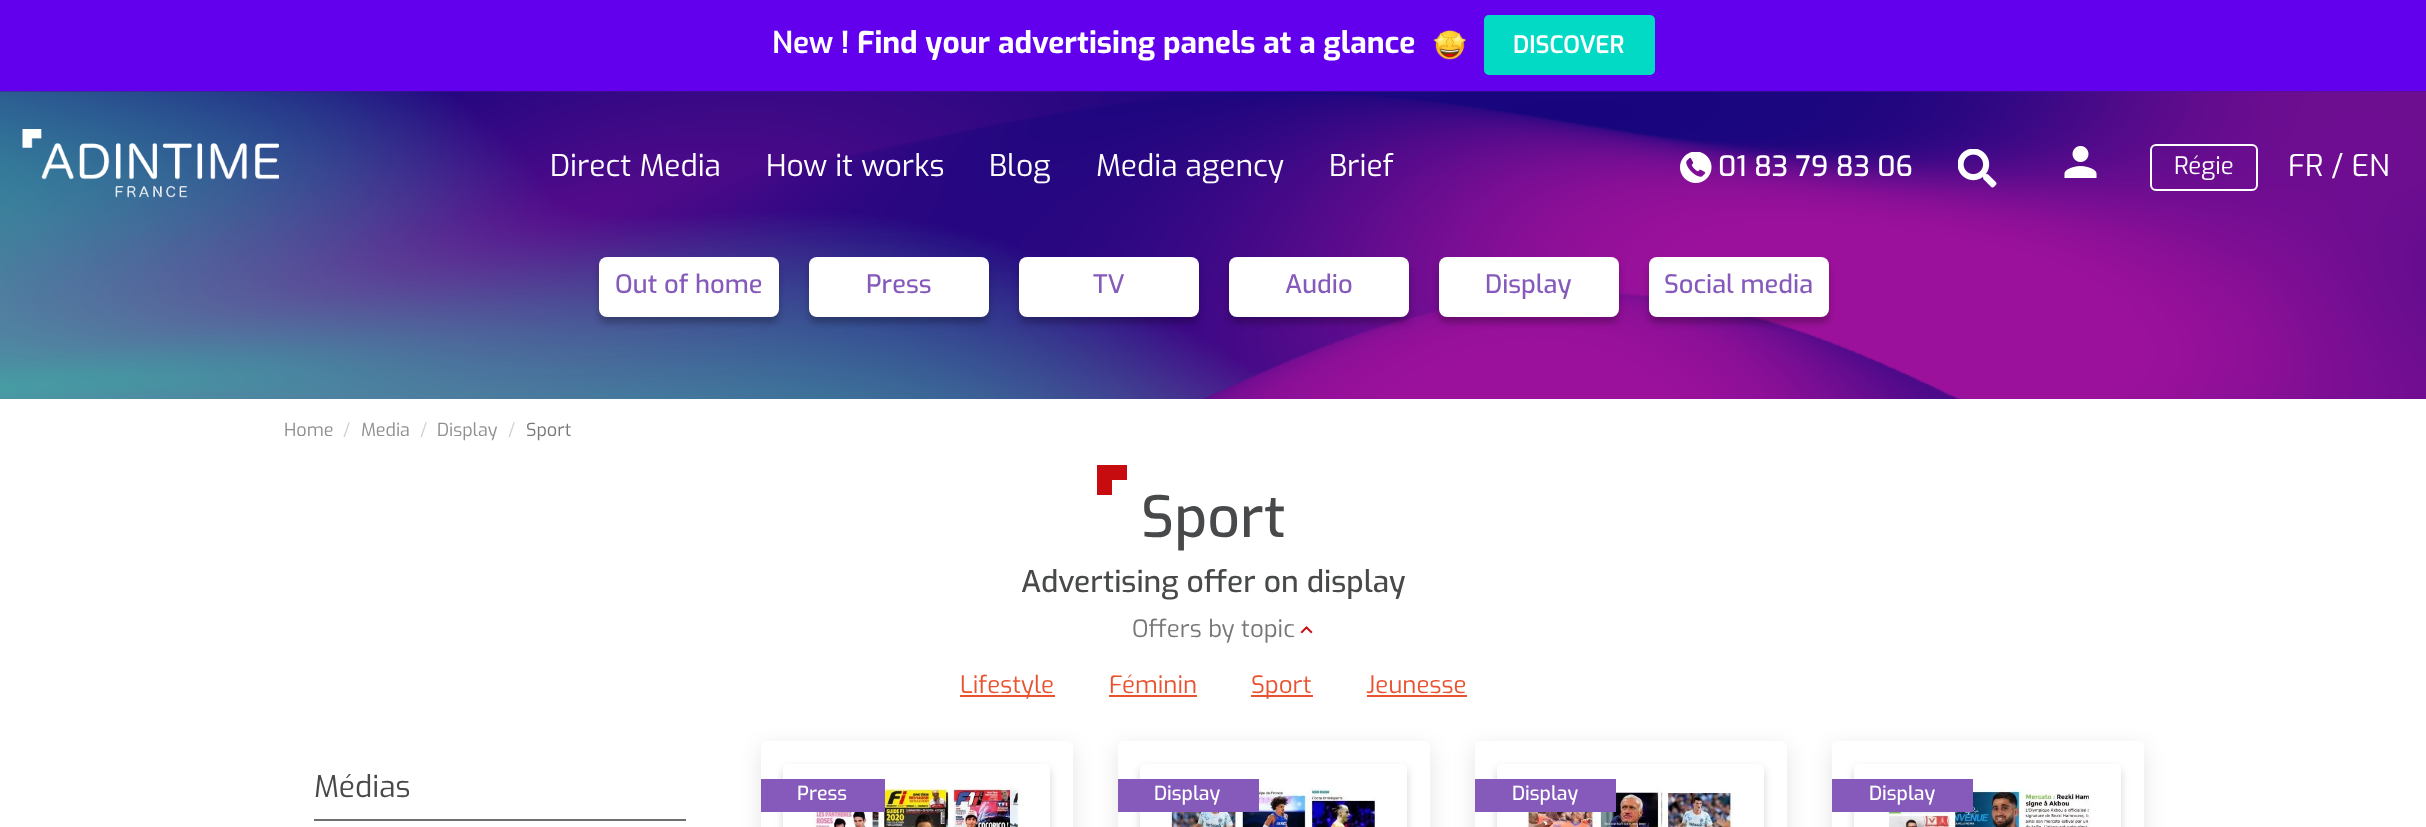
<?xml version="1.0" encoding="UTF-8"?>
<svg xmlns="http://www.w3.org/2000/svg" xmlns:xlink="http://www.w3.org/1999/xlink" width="2426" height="827">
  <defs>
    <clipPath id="clip1"><path d="M 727 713 h 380 v 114 h -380 z m 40 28 h 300 c 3.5 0 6 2.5 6 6 v 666 c 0 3.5 -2.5 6 -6 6 h -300 c -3.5 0 -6 -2.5 -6 -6 v -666 c 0 -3.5 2.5 -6 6 -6 z" clip-rule="evenodd" /></clipPath>
    <clipPath id="clip2"><path d="M 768 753 h 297 v 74 h -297 z m 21 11 h 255 c 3.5 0 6 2.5 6 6 v 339 c 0 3.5 -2.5 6 -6 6 h -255 c -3.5 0 -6 -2.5 -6 -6 v -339 c 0 -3.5 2.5 -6 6 -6 z" clip-rule="evenodd" /></clipPath>
    <clipPath id="clip3"><path d="M 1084 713 h 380 v 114 h -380 z m 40 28 h 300 c 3.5 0 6 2.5 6 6 v 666 c 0 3.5 -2.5 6 -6 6 h -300 c -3.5 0 -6 -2.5 -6 -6 v -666 c 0 -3.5 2.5 -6 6 -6 z" clip-rule="evenodd" /></clipPath>
    <clipPath id="clip4"><path d="M 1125 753 h 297 v 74 h -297 z m 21 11 h 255 c 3.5 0 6 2.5 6 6 v 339 c 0 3.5 -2.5 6 -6 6 h -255 c -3.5 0 -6 -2.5 -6 -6 v -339 c 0 -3.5 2.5 -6 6 -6 z" clip-rule="evenodd" /></clipPath>
    <clipPath id="clip5"><path d="M 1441 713 h 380 v 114 h -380 z m 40 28 h 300 c 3.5 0 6 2.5 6 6 v 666 c 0 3.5 -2.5 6 -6 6 h -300 c -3.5 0 -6 -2.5 -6 -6 v -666 c 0 -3.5 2.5 -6 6 -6 z" clip-rule="evenodd" /></clipPath>
    <clipPath id="clip6"><path d="M 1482 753 h 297 v 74 h -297 z m 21 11 h 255 c 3.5 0 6 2.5 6 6 v 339 c 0 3.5 -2.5 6 -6 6 h -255 c -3.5 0 -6 -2.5 -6 -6 v -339 c 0 -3.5 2.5 -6 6 -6 z" clip-rule="evenodd" /></clipPath>
    <clipPath id="clip7"><path d="M 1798 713 h 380 v 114 h -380 z m 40 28 h 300 c 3.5 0 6 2.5 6 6 v 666 c 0 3.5 -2.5 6 -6 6 h -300 c -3.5 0 -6 -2.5 -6 -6 v -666 c 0 -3.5 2.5 -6 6 -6 z" clip-rule="evenodd" /></clipPath>
    <clipPath id="clip8"><path d="M 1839 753 h 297 v 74 h -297 z m 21 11 h 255 c 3.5 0 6 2.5 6 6 v 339 c 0 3.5 -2.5 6 -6 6 h -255 c -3.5 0 -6 -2.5 -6 -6 v -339 c 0 -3.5 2.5 -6 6 -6 z" clip-rule="evenodd" /></clipPath>
  </defs>
  <rect width="100%" height="100%" fill="#ffffff" />
  <rect width="2426" height="92" fill="#6200ee" />
  <image x="1433" y="30" width="33" height="30" xlink:href="image1.png" />
  <rect x="1484" y="15" width="171" height="60" rx="5" fill="#03dac5" />
  <image x="0" y="91" width="2426" height="1" xlink:href="image2.png" />
  <image x="0" y="91" width="2426" height="308" xlink:href="image3.png" />
  <image x="22" y="129" width="257" height="69" xlink:href="image4.png" />
  <image x="1680" y="152" width="32" height="31" xlink:href="image5.png" />
  <image x="1958" y="149" width="39" height="39" xlink:href="image6.png" />
  <image x="2064" y="146" width="33" height="32" xlink:href="image7.png" />
  <rect x="2151" y="145" width="106" height="45" rx="5" fill="none" stroke="#ffffff" stroke-width="2" />
  <rect x="599" y="263" width="180" height="60" rx="8" fill="#000000" fill-opacity="0.25" filter="blur(3px)" />
  <rect x="599" y="257" width="180" height="60" rx="8" fill="#ffffff" />
  <rect x="809" y="263" width="180" height="60" rx="8" fill="#000000" fill-opacity="0.25" filter="blur(3px)" />
  <rect x="809" y="257" width="180" height="60" rx="8" fill="#ffffff" />
  <rect x="1019" y="263" width="180" height="60" rx="8" fill="#000000" fill-opacity="0.25" filter="blur(3px)" />
  <rect x="1019" y="257" width="180" height="60" rx="8" fill="#ffffff" />
  <rect x="1229" y="263" width="180" height="60" rx="8" fill="#000000" fill-opacity="0.25" filter="blur(3px)" />
  <rect x="1229" y="257" width="180" height="60" rx="8" fill="#ffffff" />
  <rect x="1439" y="263" width="180" height="60" rx="8" fill="#000000" fill-opacity="0.25" filter="blur(3px)" />
  <rect x="1439" y="257" width="180" height="60" rx="8" fill="#ffffff" />
  <rect x="1649" y="263" width="180" height="60" rx="8" fill="#000000" fill-opacity="0.25" filter="blur(3px)" />
  <rect x="1649" y="257" width="180" height="60" rx="8" fill="#ffffff" />
  <rect x="1112" y="465" width="15" height="15" fill="#c70c0f" />
  <rect x="1097" y="465" width="15" height="30" fill="#c70c0f" />
  <image x="1300" y="626" width="13" height="8" xlink:href="image8.png" />
  <rect x="960" y="695" width="95" height="2" fill="#ea5330" />
  <rect x="1109" y="695" width="88" height="2" fill="#ea5330" />
  <rect x="1251" y="695" width="62" height="2" fill="#ea5330" />
  <rect x="1367" y="695" width="100" height="2" fill="#ea5330" />
  <rect x="314" y="819" width="372" height="2" fill="#707070" />
  <g clip-path="url(#clip1)">
    <rect x="761" y="747" width="312" height="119" rx="6" fill="#000000" fill-opacity="0.1" filter="blur(11px)" />
  </g>
  <g clip-path="url(#clip2)">
    <rect x="783" y="768" width="267" height="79" rx="6" fill="#000000" fill-opacity="0.16" filter="blur(4.5px)" />
  </g>
  <image x="812" y="783" width="208" height="44" xlink:href="image9.png" />
  <rect x="761" y="779" width="124" height="33" fill="#855abb" />
  <g clip-path="url(#clip3)">
    <rect x="1118" y="747" width="312" height="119" rx="6" fill="#000000" fill-opacity="0.1" filter="blur(11px)" />
  </g>
  <g clip-path="url(#clip4)">
    <rect x="1140" y="768" width="267" height="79" rx="6" fill="#000000" fill-opacity="0.16" filter="blur(4.5px)" />
  </g>
  <image x="1169" y="788" width="208" height="39" xlink:href="image10.png" />
  <rect x="1118" y="779" width="141" height="33" fill="#855abb" />
  <g clip-path="url(#clip5)">
    <rect x="1475" y="747" width="312" height="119" rx="6" fill="#000000" fill-opacity="0.1" filter="blur(11px)" />
  </g>
  <g clip-path="url(#clip6)">
    <rect x="1497" y="768" width="267" height="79" rx="6" fill="#000000" fill-opacity="0.16" filter="blur(4.5px)" />
  </g>
  <image x="1526" y="788" width="208" height="39" xlink:href="image11.png" />
  <rect x="1475" y="779" width="141" height="33" fill="#855abb" />
  <g clip-path="url(#clip7)">
    <rect x="1832" y="747" width="312" height="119" rx="6" fill="#000000" fill-opacity="0.1" filter="blur(11px)" />
  </g>
  <g clip-path="url(#clip8)">
    <rect x="1854" y="768" width="267" height="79" rx="6" fill="#000000" fill-opacity="0.16" filter="blur(4.5px)" />
  </g>
  <image x="1883" y="788" width="208" height="39" xlink:href="image12.png" />
  <rect x="1832" y="779" width="141" height="33" fill="#855abb" />
  <text x="772" y="53" style="font-family: Exo; font-size: 30px; font-weight: 600; fill: #ffffff">New</text>
  <text x="841" y="53" style="font-family: Exo; font-size: 30px; font-weight: bold; fill: #ffffff">! Find your advertising panels at a glance</text>
  <text x="1513" y="53" style="font-family: Exo; font-size: 24px; font-weight: 600; fill: #ffffff">DISCOVER</text>
  <text x="550" y="176" style="font-family: Exo; font-size: 30px; fill: #ffffff">Direct Media</text>
  <text x="766" y="176" style="font-family: Exo; font-size: 30px; fill: #ffffff">How it works</text>
  <text x="989" y="176" style="font-family: Exo; font-size: 30px; fill: #ffffff">Blog</text>
  <text x="1096" y="176" style="font-family: Exo; font-size: 30px; fill: #ffffff">Media agency</text>
  <text x="1329" y="176" style="font-family: Exo; font-size: 30px; fill: #ffffff">Brief</text>
  <text x="1718" y="176" style="font-family: Exo; font-size: 28px; font-weight: 500; fill: #ffffff">01 83 79 83 06</text>
  <text x="2174" y="174" style="font-family: Exo; font-size: 24px; fill: #ffffff">Régie</text>
  <text x="2288" y="176" style="font-family: Exo; font-size: 30px; fill: #ffffff">FR / EN</text>
  <text x="615" y="293" style="font-family: Exo; font-size: 25.5px; font-weight: 500; fill: #855abb">Out of home</text>
  <text x="866" y="293" style="font-family: Exo; font-size: 25.5px; font-weight: 500; fill: #855abb">Press</text>
  <text x="1093" y="293" style="font-family: Exo; font-size: 25.5px; font-weight: 500; fill: #855abb">TV</text>
  <text x="1285" y="293" style="font-family: Exo; font-size: 25.5px; font-weight: 500; fill: #855abb">Audio</text>
  <text x="1485" y="293" style="font-family: Exo; font-size: 25.5px; font-weight: 500; fill: #855abb">Display</text>
  <text x="1664" y="293" style="font-family: Exo; font-size: 25.5px; font-weight: 500; fill: #855abb">Social media</text>
  <text x="284" y="436" style="font-family: Exo; font-size: 18px; fill: #8f8f8f">Home</text>
  <text x="343" y="436" style="font-family: Exo; font-size: 18px; fill: #d2d2d2">/</text>
  <text x="361" y="436" style="font-family: Exo; font-size: 18px; fill: #8f8f8f">Media</text>
  <text x="420" y="436" style="font-family: Exo; font-size: 18px; fill: #d2d2d2">/</text>
  <text x="437" y="436" style="font-family: Exo; font-size: 18px; fill: #8f8f8f">Display</text>
  <text x="508" y="436" style="font-family: Exo; font-size: 18px; fill: #d2d2d2">/</text>
  <text x="526" y="436" style="font-family: Exo; font-size: 18px; fill: #777777">Sport</text>
  <text x="1141" y="537" style="font-family: Exo; font-size: 57px; font-weight: 500; fill: #48494a">Sport</text>
  <text x="1021" y="592" style="font-family: Exo; font-size: 30px; font-weight: 500; fill: #48494a">Advertising offer on display</text>
  <text x="1132" y="637" style="font-family: Exo; font-size: 24px; fill: #777777">Offers by topic</text>
  <text x="960" y="693" style="font-family: Exo; font-size: 24px; fill: #ea5330">Lifestyle</text>
  <text x="1109" y="693" style="font-family: Exo; font-size: 24px; fill: #ea5330">Féminin</text>
  <text x="1251" y="693" style="font-family: Exo; font-size: 24px; fill: #ea5330">Sport</text>
  <text x="1366" y="693" style="font-family: Exo; font-size: 24px; fill: #ea5330">Jeunesse</text>
  <text x="314" y="797" style="font-family: Exo; font-size: 30px; fill: #48494a">Médias</text>
  <text x="797" y="800" style="font-family: Exo; font-size: 19.5px; font-weight: 500; fill: #ffffff">Press</text>
  <text x="1154" y="800" style="font-family: Exo; font-size: 19.5px; font-weight: 500; fill: #ffffff">Display</text>
  <text x="1512" y="800" style="font-family: Exo; font-size: 19.5px; font-weight: 500; fill: #ffffff">Display</text>
  <text x="1869" y="800" style="font-family: Exo; font-size: 19.5px; font-weight: 500; fill: #ffffff">Display</text>
</svg>
